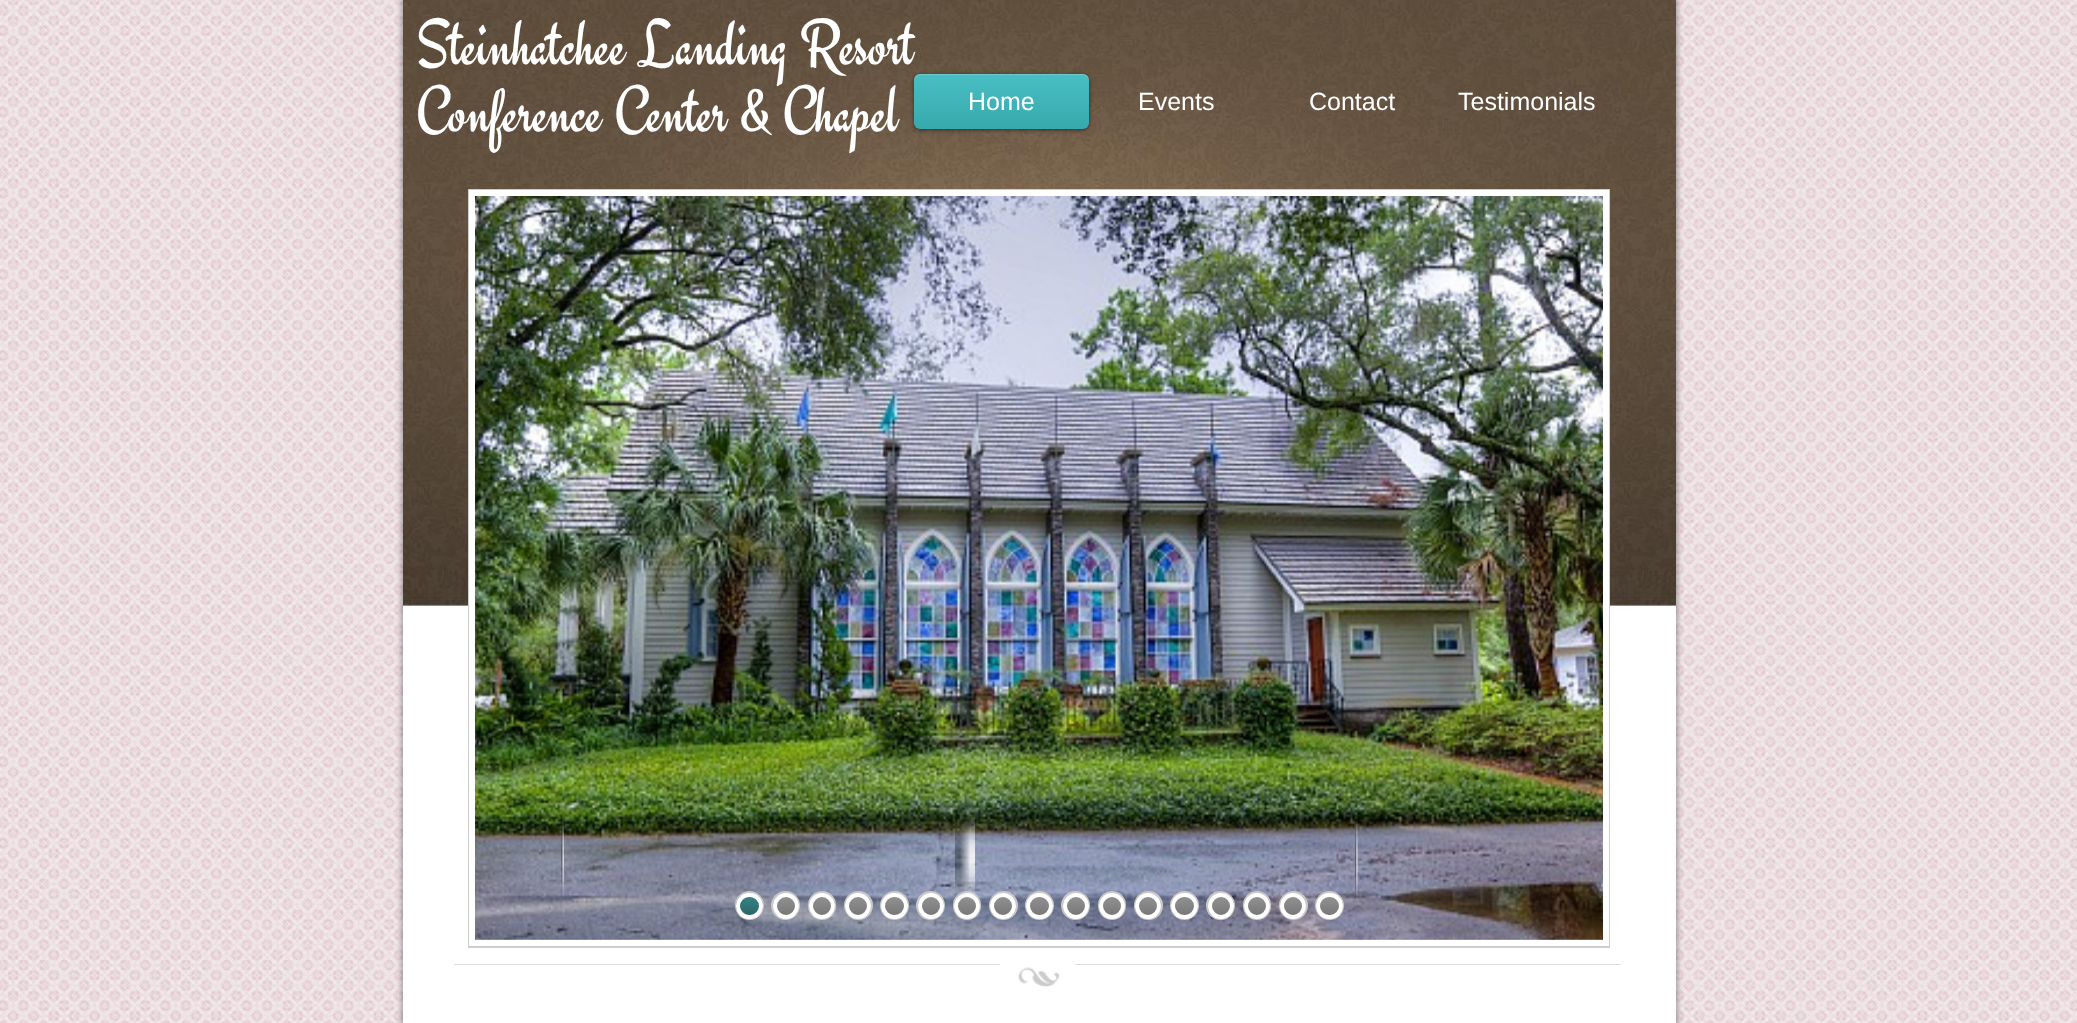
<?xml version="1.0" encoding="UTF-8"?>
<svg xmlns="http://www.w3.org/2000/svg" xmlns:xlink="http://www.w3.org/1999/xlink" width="2077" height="1023">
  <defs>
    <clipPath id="clip1"><rect x="736" y="893" width="27" height="26" rx="13" /></clipPath>
    <linearGradient id="g1" gradientUnits="userSpaceOnUse" x1="749" y1="896" x2="749" y2="915"><stop offset="0" stop-color="#368285" /><stop offset="1" stop-color="#2b6769" /></linearGradient>
    <clipPath id="clip2"><rect x="773" y="893" width="26" height="26" rx="13" /></clipPath>
    <linearGradient id="g2" gradientUnits="userSpaceOnUse" x1="786" y1="896" x2="786" y2="915"><stop offset="0" stop-color="#929292" /><stop offset="1" stop-color="#787878" /></linearGradient>
    <clipPath id="clip3"><rect x="809" y="893" width="26" height="26" rx="13" /></clipPath>
    <linearGradient id="g3" gradientUnits="userSpaceOnUse" x1="822" y1="896" x2="822" y2="915"><stop offset="0" stop-color="#929292" /><stop offset="1" stop-color="#787878" /></linearGradient>
    <clipPath id="clip4"><rect x="845" y="893" width="26" height="26" rx="13" /></clipPath>
    <linearGradient id="g4" gradientUnits="userSpaceOnUse" x1="858" y1="896" x2="858" y2="915"><stop offset="0" stop-color="#929292" /><stop offset="1" stop-color="#787878" /></linearGradient>
    <clipPath id="clip5"><rect x="881" y="893" width="27" height="26" rx="13" /></clipPath>
    <linearGradient id="g5" gradientUnits="userSpaceOnUse" x1="894" y1="896" x2="894" y2="915"><stop offset="0" stop-color="#929292" /><stop offset="1" stop-color="#787878" /></linearGradient>
    <clipPath id="clip6"><rect x="918" y="893" width="26" height="26" rx="13" /></clipPath>
    <linearGradient id="g6" gradientUnits="userSpaceOnUse" x1="931" y1="896" x2="931" y2="915"><stop offset="0" stop-color="#929292" /><stop offset="1" stop-color="#787878" /></linearGradient>
    <clipPath id="clip7"><rect x="954" y="893" width="26" height="26" rx="13" /></clipPath>
    <linearGradient id="g7" gradientUnits="userSpaceOnUse" x1="967" y1="896" x2="967" y2="915"><stop offset="0" stop-color="#929292" /><stop offset="1" stop-color="#787878" /></linearGradient>
    <clipPath id="clip8"><rect x="990" y="893" width="26" height="26" rx="13" /></clipPath>
    <linearGradient id="g8" gradientUnits="userSpaceOnUse" x1="1003" y1="896" x2="1003" y2="915"><stop offset="0" stop-color="#929292" /><stop offset="1" stop-color="#787878" /></linearGradient>
    <clipPath id="clip9"><rect x="1026" y="893" width="27" height="26" rx="13" /></clipPath>
    <linearGradient id="g9" gradientUnits="userSpaceOnUse" x1="1039" y1="896" x2="1039" y2="915"><stop offset="0" stop-color="#929292" /><stop offset="1" stop-color="#787878" /></linearGradient>
    <clipPath id="clip10"><rect x="1063" y="893" width="26" height="26" rx="13" /></clipPath>
    <linearGradient id="g10" gradientUnits="userSpaceOnUse" x1="1076" y1="896" x2="1076" y2="915"><stop offset="0" stop-color="#929292" /><stop offset="1" stop-color="#787878" /></linearGradient>
    <clipPath id="clip11"><rect x="1099" y="893" width="26" height="26" rx="13" /></clipPath>
    <linearGradient id="g11" gradientUnits="userSpaceOnUse" x1="1112" y1="896" x2="1112" y2="915"><stop offset="0" stop-color="#929292" /><stop offset="1" stop-color="#787878" /></linearGradient>
    <clipPath id="clip12"><rect x="1135" y="893" width="26" height="26" rx="13" /></clipPath>
    <linearGradient id="g12" gradientUnits="userSpaceOnUse" x1="1148" y1="896" x2="1148" y2="915"><stop offset="0" stop-color="#929292" /><stop offset="1" stop-color="#787878" /></linearGradient>
    <clipPath id="clip13"><rect x="1171" y="893" width="27" height="26" rx="13" /></clipPath>
    <linearGradient id="g13" gradientUnits="userSpaceOnUse" x1="1184" y1="896" x2="1184" y2="915"><stop offset="0" stop-color="#929292" /><stop offset="1" stop-color="#787878" /></linearGradient>
    <clipPath id="clip14"><rect x="1208" y="893" width="26" height="26" rx="13" /></clipPath>
    <linearGradient id="g14" gradientUnits="userSpaceOnUse" x1="1221" y1="896" x2="1221" y2="915"><stop offset="0" stop-color="#929292" /><stop offset="1" stop-color="#787878" /></linearGradient>
    <clipPath id="clip15"><rect x="1244" y="893" width="26" height="26" rx="13" /></clipPath>
    <linearGradient id="g15" gradientUnits="userSpaceOnUse" x1="1257" y1="896" x2="1257" y2="915"><stop offset="0" stop-color="#929292" /><stop offset="1" stop-color="#787878" /></linearGradient>
    <clipPath id="clip16"><rect x="1280" y="893" width="26" height="26" rx="13" /></clipPath>
    <linearGradient id="g16" gradientUnits="userSpaceOnUse" x1="1293" y1="896" x2="1293" y2="915"><stop offset="0" stop-color="#929292" /><stop offset="1" stop-color="#787878" /></linearGradient>
    <clipPath id="clip17"><rect x="1316" y="893" width="27" height="26" rx="13" /></clipPath>
    <linearGradient id="g17" gradientUnits="userSpaceOnUse" x1="1329" y1="896" x2="1329" y2="915"><stop offset="0" stop-color="#929292" /><stop offset="1" stop-color="#787878" /></linearGradient>
    <linearGradient id="g18" gradientUnits="userSpaceOnUse" x1="1001" y1="74" x2="1001" y2="129"><stop offset="0" stop-color="#49bfc3" /><stop offset="1" stop-color="#37a9ad" /></linearGradient>
  </defs>
  <rect width="100%" height="100%" fill="#ffffff" />
  <image x="0" y="0" width="2077" height="1023" xlink:href="image1.png" />
  <rect x="401" y="-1" width="1277" height="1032" fill="#000000" fill-opacity="0.3" filter="blur(2.5px)" />
  <rect x="403" y="606" width="1273" height="417" fill="#ffffff" />
  <image x="403" y="0" width="1273" height="606" xlink:href="image2.png" />
  <rect x="914" y="75" width="175" height="55" rx="6" fill="#000000" fill-opacity="0.5" filter="blur(2px)" />
  <rect x="472" y="193" width="1134" height="751" fill="none" stroke="#cecdce" stroke-width="8" />
  <rect x="472" y="193" width="1134" height="750" fill="none" stroke="#ffffff" stroke-width="6" />
  <image x="475" y="196" width="1128" height="744" xlink:href="image3.png" />
  <rect x="735" y="891" width="29" height="29" rx="14.5" fill="#c9c9c9" filter="blur(0.5px)" />
  <g clip-path="url(#clip1)">
    <rect x="736" y="896" width="27" height="19" fill="url(#g1)" />
  </g>
  <rect x="738" y="895" width="23" height="22" rx="11" fill="none" stroke="#ffffff" stroke-width="4" />
  <rect x="771" y="891" width="29" height="29" rx="14.5" fill="#c9c9c9" filter="blur(0.5px)" />
  <g clip-path="url(#clip2)">
    <rect x="773" y="896" width="26" height="19" fill="url(#g2)" />
  </g>
  <circle cx="786" cy="906" r="11" fill="none" stroke="#ffffff" stroke-width="4" />
  <rect x="808" y="891" width="28" height="29" rx="14" fill="#c9c9c9" filter="blur(0.5px)" />
  <g clip-path="url(#clip3)">
    <rect x="809" y="896" width="26" height="19" fill="url(#g3)" />
  </g>
  <circle cx="822" cy="906" r="11" fill="none" stroke="#ffffff" stroke-width="4" />
  <rect x="844" y="891" width="29" height="29" rx="14.5" fill="#c9c9c9" filter="blur(0.5px)" />
  <g clip-path="url(#clip4)">
    <rect x="845" y="896" width="26" height="19" fill="url(#g4)" />
  </g>
  <circle cx="858" cy="906" r="11" fill="none" stroke="#ffffff" stroke-width="4" />
  <rect x="880" y="891" width="29" height="29" rx="14.5" fill="#c9c9c9" filter="blur(0.5px)" />
  <g clip-path="url(#clip5)">
    <rect x="881" y="896" width="27" height="19" fill="url(#g5)" />
  </g>
  <rect x="883" y="895" width="23" height="22" rx="11" fill="none" stroke="#ffffff" stroke-width="4" />
  <rect x="916" y="891" width="29" height="29" rx="14.5" fill="#c9c9c9" filter="blur(0.5px)" />
  <g clip-path="url(#clip6)">
    <rect x="918" y="896" width="26" height="19" fill="url(#g6)" />
  </g>
  <circle cx="931" cy="906" r="11" fill="none" stroke="#ffffff" stroke-width="4" />
  <rect x="953" y="891" width="28" height="29" rx="14" fill="#c9c9c9" filter="blur(0.5px)" />
  <g clip-path="url(#clip7)">
    <rect x="954" y="896" width="26" height="19" fill="url(#g7)" />
  </g>
  <circle cx="967" cy="906" r="11" fill="none" stroke="#ffffff" stroke-width="4" />
  <rect x="989" y="891" width="29" height="29" rx="14.5" fill="#c9c9c9" filter="blur(0.5px)" />
  <g clip-path="url(#clip8)">
    <rect x="990" y="896" width="26" height="19" fill="url(#g8)" />
  </g>
  <circle cx="1003" cy="906" r="11" fill="none" stroke="#ffffff" stroke-width="4" />
  <rect x="1025" y="891" width="29" height="29" rx="14.5" fill="#c9c9c9" filter="blur(0.5px)" />
  <g clip-path="url(#clip9)">
    <rect x="1026" y="896" width="27" height="19" fill="url(#g9)" />
  </g>
  <rect x="1028" y="895" width="23" height="22" rx="11" fill="none" stroke="#ffffff" stroke-width="4" />
  <rect x="1061" y="891" width="29" height="29" rx="14.5" fill="#c9c9c9" filter="blur(0.5px)" />
  <g clip-path="url(#clip10)">
    <rect x="1063" y="896" width="26" height="19" fill="url(#g10)" />
  </g>
  <circle cx="1076" cy="906" r="11" fill="none" stroke="#ffffff" stroke-width="4" />
  <rect x="1098" y="891" width="28" height="29" rx="14" fill="#c9c9c9" filter="blur(0.5px)" />
  <g clip-path="url(#clip11)">
    <rect x="1099" y="896" width="26" height="19" fill="url(#g11)" />
  </g>
  <circle cx="1112" cy="906" r="11" fill="none" stroke="#ffffff" stroke-width="4" />
  <rect x="1134" y="891" width="29" height="29" rx="14.5" fill="#c9c9c9" filter="blur(0.5px)" />
  <g clip-path="url(#clip12)">
    <rect x="1135" y="896" width="26" height="19" fill="url(#g12)" />
  </g>
  <circle cx="1148" cy="906" r="11" fill="none" stroke="#ffffff" stroke-width="4" />
  <rect x="1170" y="891" width="29" height="29" rx="14.5" fill="#c9c9c9" filter="blur(0.5px)" />
  <g clip-path="url(#clip13)">
    <rect x="1171" y="896" width="27" height="19" fill="url(#g13)" />
  </g>
  <rect x="1173" y="895" width="23" height="22" rx="11" fill="none" stroke="#ffffff" stroke-width="4" />
  <rect x="1206" y="891" width="29" height="29" rx="14.5" fill="#c9c9c9" filter="blur(0.5px)" />
  <g clip-path="url(#clip14)">
    <rect x="1208" y="896" width="26" height="19" fill="url(#g14)" />
  </g>
  <circle cx="1221" cy="906" r="11" fill="none" stroke="#ffffff" stroke-width="4" />
  <rect x="1243" y="891" width="28" height="29" rx="14" fill="#c9c9c9" filter="blur(0.5px)" />
  <g clip-path="url(#clip15)">
    <rect x="1244" y="896" width="26" height="19" fill="url(#g15)" />
  </g>
  <circle cx="1257" cy="906" r="11" fill="none" stroke="#ffffff" stroke-width="4" />
  <rect x="1279" y="891" width="29" height="29" rx="14.5" fill="#c9c9c9" filter="blur(0.5px)" />
  <g clip-path="url(#clip16)">
    <rect x="1280" y="896" width="26" height="19" fill="url(#g16)" />
  </g>
  <circle cx="1293" cy="906" r="11" fill="none" stroke="#ffffff" stroke-width="4" />
  <rect x="1315" y="891" width="29" height="29" rx="14.5" fill="#c9c9c9" filter="blur(0.5px)" />
  <g clip-path="url(#clip17)">
    <rect x="1316" y="896" width="27" height="19" fill="url(#g17)" />
  </g>
  <rect x="1318" y="895" width="23" height="22" rx="11" fill="none" stroke="#ffffff" stroke-width="4" />
  <image x="561" y="817" width="3" height="83" xlink:href="image4.png" />
  <image x="955" y="817" width="20" height="83" xlink:href="image5.png" />
  <image x="1355" y="821" width="3" height="81" xlink:href="image6.png" />
  <rect x="454" y="964" width="546" height="1" fill="#dddddd" />
  <rect x="1075" y="964" width="546" height="1" fill="#dddddd" />
  <image x="1018" y="967" width="42" height="20" xlink:href="image7.png" />
  <text x="416" y="64" style="font-family: Engagement; font-size: 66.25px; fill: #ffffff">Steinhatchee Landing Resort</text>
  <text x="416" y="131" style="font-family: Engagement; font-size: 66.25px; fill: #ffffff">Conference Center &amp; Chapel</text>
  <rect x="914" y="74" width="175" height="55" rx="6" fill="url(#g18)" />
  <path d="M 920 75 h 162 c 4 0 7 3 7 6 v -1 c 0 -3 -3 -6 -6 -6 h -163 c -3 0 -6 3 -6 6 v 1 c 0 -3 3 -6 6 -6 z" fill="#ffffff" fill-opacity="0.2" />
  <text x="968" y="110" style="font-family: Liberation Sans; font-size: 25px; fill: #ffffff">Home</text>
  <text x="1138" y="110" style="font-family: Liberation Sans; font-size: 25px; fill: #ffffff">Events</text>
  <text x="1309" y="110" style="font-family: Liberation Sans; font-size: 25px; fill: #ffffff">Contact</text>
  <text x="1458" y="110" style="font-family: Liberation Sans; font-size: 25px; fill: #ffffff">Testimonials</text>
</svg>
